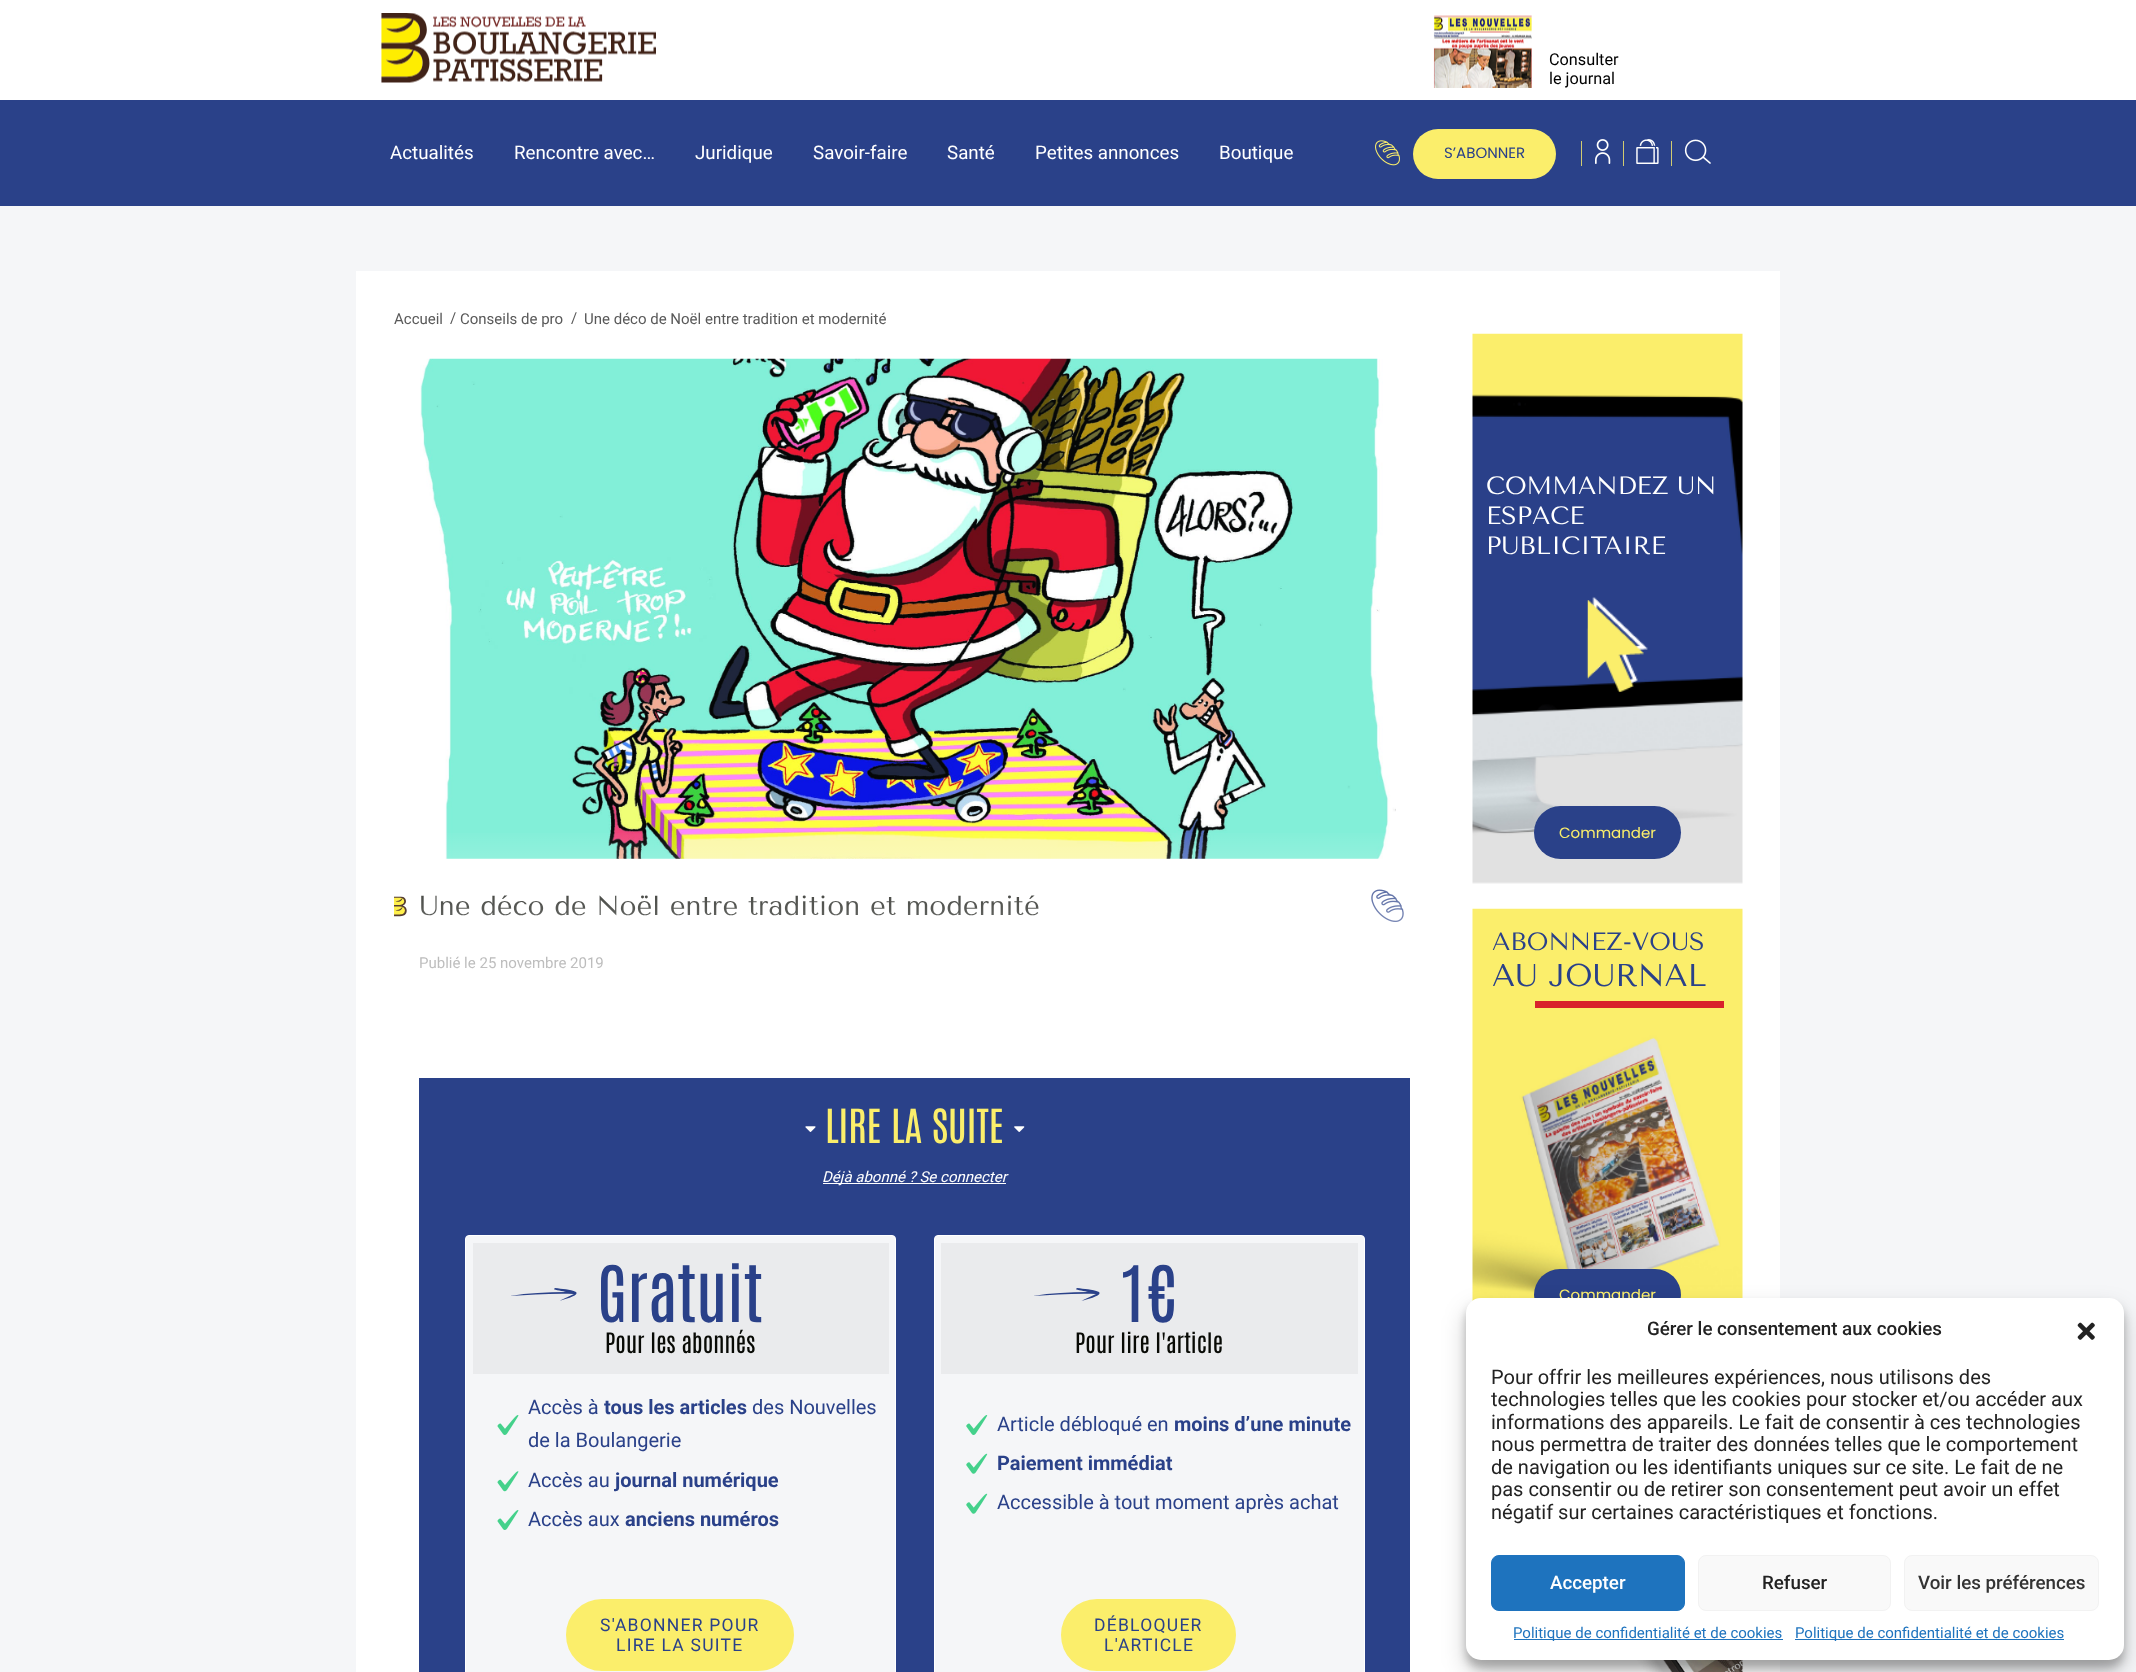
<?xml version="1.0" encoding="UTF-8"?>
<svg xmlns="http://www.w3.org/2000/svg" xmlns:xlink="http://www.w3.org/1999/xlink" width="2136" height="1672">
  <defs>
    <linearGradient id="g1" gradientUnits="userSpaceOnUse" x1="914" y1="828" x2="914" y2="1078"><stop offset="0" stop-color="#ffffff" stop-opacity="0" /><stop offset="1" stop-color="#ffffff" /></linearGradient>
  </defs>
  <rect width="100%" height="100%" fill="#f5f6f8" />
  <rect width="2136" height="100" fill="#ffffff" />
  <image x="381" y="13" width="275" height="70" xlink:href="image1.png" />
  <image x="1433" y="15" width="99" height="73" xlink:href="image2.png" />
  <rect y="100" width="2136" height="106" fill="#2a4189" />
  <image x="1375" y="140" width="25" height="26" xlink:href="image3.png" />
  <rect x="1413" y="129" width="143" height="50" rx="25" fill="#fbee6b" />
  <rect x="1581" y="141" width="1" height="25" fill="#d1cb71" />
  <image x="1595" y="139" width="16" height="25" xlink:href="image4.png" />
  <rect x="1623" y="141" width="1" height="25" fill="#d1cb71" />
  <image x="1636" y="139" width="23" height="25" xlink:href="image5.png" />
  <rect x="1671" y="141" width="1" height="25" fill="#d1cb71" />
  <image x="1684" y="139" width="27" height="25" xlink:href="image6.png" />
  <rect x="356" y="271" width="1424" height="1401" fill="#ffffff" />
  <image x="420" y="358" width="976" height="501" xlink:href="image7.png" />
  <image x="394" y="896" width="13" height="21" xlink:href="image8.png" />
  <image x="1371" y="889" width="33" height="33" xlink:href="image9.png" />
  <rect x="419" y="1078" width="991" height="594" fill="#2a4189" />
  <image x="805" y="1126" width="11" height="6" xlink:href="image10.png" />
  <image x="1014" y="1126" width="11" height="6" xlink:href="image11.png" />
  <rect x="823" y="1183" width="183" height="1" fill="#ffffff" />
  <rect x="465.5" y="1235.5" width="430" height="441" rx="3.5" fill="#f5f6f8" stroke="#ffffff" />
  <rect x="473" y="1243" width="416" height="131" fill="#eaebed" />
  <path d="M 510 1296 c 21 -1 43 -3 64 -2 l -15 7 c 2 -1 21 -5 17 -9 c -6 -3 -14 -3 -21 -4 l -1 1 c 0 1 10 2 12 3 c -19 0 -38 1 -56 4 z" fill="#2a4189" />
  <image x="497" y="1415" width="22" height="20" xlink:href="image12.png" />
  <image x="497" y="1471" width="22" height="21" xlink:href="image13.png" />
  <image x="497" y="1510" width="22" height="20" xlink:href="image12.png" />
  <rect x="567.5" y="1600.5" width="225" height="69" rx="34.5" fill="#fbee6b" stroke="#fbee6b" stroke-width="3" />
  <rect x="934.5" y="1235.5" width="430" height="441" rx="3.5" fill="#f5f6f8" stroke="#ffffff" />
  <rect x="941" y="1243" width="417" height="131" fill="#eaebed" />
  <path d="M 1033 1296 c 21 -1 42 -3 63 -2 l -15 7 c 3 -1 22 -5 18 -9 c -7 -3 -15 -3 -22 -4 l -1 1 c 0 1 10 2 12 3 c -18 0 -37 1 -55 4 z" fill="#2a4189" />
  <image x="966" y="1415" width="22" height="20" xlink:href="image14.png" />
  <image x="966" y="1453" width="22" height="21" xlink:href="image15.png" />
  <image x="966" y="1493" width="22" height="21" xlink:href="image15.png" />
  <rect x="1062.5" y="1600.5" width="172" height="69" rx="34.5" fill="#fbee6b" stroke="#fbee6b" stroke-width="3" />
  <image x="1472" y="333" width="271" height="551" xlink:href="image16.png" />
  <rect x="1534" y="806" width="147" height="53" rx="26.5" fill="#2a4189" />
  <image x="1472" y="908" width="271" height="393" xlink:href="image17.png" />
  <rect x="1535" y="1001" width="189" height="7" fill="#d8222b" />
  <rect x="1534" y="1269" width="147" height="52" rx="26" fill="#2a4189" />
  <image x="1585" y="1660" width="158" height="12" xlink:href="image18.png" />
  <rect x="1466" y="1305" width="658" height="363" rx="15" fill="#000000" fill-opacity="0.23" filter="blur(4px)" />
  <rect x="1466" y="1310" width="658" height="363" rx="15" fill="#000000" fill-opacity="0.19" filter="blur(12.5px)" />
  <text x="1549" y="65" style="font-family: Roboto; font-size: 16.25px; fill: #000000">Consulter</text>
  <text x="1549" y="84" style="font-family: Roboto; font-size: 16.25px; fill: #000000">le journal</text>
  <text x="390" y="159" style="font-family: Roboto; font-size: 18.75px; fill: #ffffff">Actualités</text>
  <text x="514" y="159" style="font-family: Roboto; font-size: 18.75px; fill: #ffffff">Rencontre avec…</text>
  <text x="695" y="159" style="font-family: Roboto; font-size: 18.75px; fill: #ffffff">Juridique</text>
  <text x="813" y="159" style="font-family: Roboto; font-size: 18.75px; fill: #ffffff">Savoir-faire</text>
  <text x="947" y="159" style="font-family: Roboto; font-size: 18.75px; fill: #ffffff">Santé</text>
  <text x="1035" y="159" style="font-family: Roboto; font-size: 18.75px; fill: #ffffff">Petites annonces</text>
  <text x="1219" y="159" style="font-family: Roboto; font-size: 18.75px; fill: #ffffff">Boutique</text>
  <text x="1444" y="158" style="font-family: Poppins; font-size: 15px; fill: #2a4189">S’ABONNER</text>
  <text x="394" y="324" style="font-family: Roboto; font-size: 15px; fill: #595959">Accueil</text>
  <text x="450" y="323" style="font-family: Roboto; font-size: 15px; fill: #595959">/</text>
  <text x="460" y="324" style="font-family: Roboto; font-size: 15px; fill: #595959">Conseils de pro</text>
  <text x="571" y="323" style="font-family: Roboto; font-size: 15px; fill: #595959">/</text>
  <text x="584" y="324" style="font-family: Roboto; font-size: 15px; fill: #595959">Une déco de Noël entre tradition et modernité</text>
  <text x="419" y="915" style="font-family: Tenor Sans; font-size: 27.5px; fill: #080a05">Une déco de Noël entre tradition et modernité</text>
  <text x="419" y="968" style="font-family: Roboto; font-size: 15px; fill: #707070">Publié le 25 novembre 2019</text>
  <rect x="419" y="833" width="985" height="136" fill="url(#g1)" />
  <text x="825" y="1143" style="font-family: Antonio; font-size: 40px; fill: #fbee6b">LIRE LA SUITE</text>
  <text x="822" y="1182" style="font-family: Roboto; font-size: 15px; font-style: italic; fill: #ffffff">Déjà abonné ? Se connecter</text>
  <text x="597" y="1322" style="font-family: Antonio; font-size: 66px; fill: #2a4189">Gratuit</text>
  <text x="605" y="1353" style="font-family: Antonio; font-size: 23.75px; fill: #080a05">Pour les abonnés</text>
  <text x="528" y="1414" style="font-family: Roboto; font-size: 20px; fill: #2a4189">Accès à</text>
  <text x="604" y="1414" style="font-family: Roboto; font-size: 20px; font-weight: bold; fill: #2a4189">tous les articles</text>
  <text x="752" y="1414" style="font-family: Roboto; font-size: 20px; fill: #2a4189">des Nouvelles</text>
  <text x="528" y="1447" style="font-family: Roboto; font-size: 20px; fill: #2a4189">de la Boulangerie</text>
  <text x="528" y="1487" style="font-family: Roboto; font-size: 20px; fill: #2a4189">Accès au</text>
  <text x="615" y="1487" style="font-family: Roboto; font-size: 20px; font-weight: bold; fill: #2a4189">journal numérique</text>
  <text x="528" y="1526" style="font-family: Roboto; font-size: 20px; fill: #2a4189">Accès aux</text>
  <text x="625" y="1526" style="font-family: Roboto; font-size: 20px; font-weight: bold; fill: #2a4189">anciens numéros</text>
  <text x="600" y="1631" style="font-family: Roboto; font-size: 17.5px; letter-spacing: 1.25px; fill: #2a4189">S'ABONNER POUR</text>
  <text x="616" y="1651" style="font-family: Roboto; font-size: 17.5px; letter-spacing: 1.25px; fill: #2a4189">LIRE LA SUITE</text>
  <text x="1119" y="1322" style="font-family: Antonio; font-size: 66px; fill: #2a4189">1€</text>
  <text x="1075" y="1353" style="font-family: Antonio; font-size: 23.75px; fill: #080a05">Pour lire l'article</text>
  <text x="997" y="1431" style="font-family: Roboto; font-size: 20px; fill: #2a4189">Article débloqué en</text>
  <text x="1174" y="1431" style="font-family: Roboto; font-size: 20px; font-weight: bold; fill: #2a4189">moins d’une minute</text>
  <text x="997" y="1470" style="font-family: Roboto; font-size: 20px; font-weight: bold; fill: #2a4189">Paiement immédiat</text>
  <text x="997" y="1509" style="font-family: Roboto; font-size: 20px; fill: #2a4189">Accessible à tout moment après achat</text>
  <text x="1094" y="1631" style="font-family: Roboto; font-size: 17.5px; letter-spacing: 1.25px; fill: #2a4189">DÉBLOQUER</text>
  <text x="1104" y="1651" style="font-family: Roboto; font-size: 17.5px; letter-spacing: 1.25px; fill: #2a4189">L'ARTICLE</text>
  <text x="1486" y="494" style="font-family: Tenor Sans; font-size: 25px; fill: #ffffff">COMMANDEZ UN</text>
  <text x="1486" y="524" style="font-family: Tenor Sans; font-size: 25px; fill: #ffffff">ESPACE</text>
  <text x="1486" y="554" style="font-family: Tenor Sans; font-size: 25px; fill: #ffffff">PUBLICITAIRE</text>
  <text x="1559" y="838" style="font-family: Poppins; font-size: 15px; fill: #fbee6b">Commander</text>
  <text x="1492" y="950" style="font-family: Tenor Sans; font-size: 25px; fill: #2a4189">ABONNEZ-VOUS</text>
  <text x="1492" y="986" style="font-family: Tenor Sans; font-size: 31.5px; fill: #2a4189">AU JOURNAL</text>
  <text x="1559" y="1300" style="font-family: Poppins; font-size: 15px; fill: #fbee6b">Commander</text>
  <rect x="1466" y="1298" width="658" height="362" rx="15" fill="#ffffff" />
  <text x="1647" y="1335" style="font-family: Roboto; font-size: 18.75px; font-weight: 500; fill: #222222">Gérer le consentement aux cookies</text>
  <image x="2077" y="1322" width="18" height="18" xlink:href="image19.png" />
  <text x="1491" y="1384" style="font-family: Roboto; font-size: 20px; fill: #222222">Pour offrir les meilleures expériences, nous utilisons des</text>
  <text x="1491" y="1406" style="font-family: Roboto; font-size: 20px; fill: #222222">technologies telles que les cookies pour stocker et/ou accéder aux</text>
  <text x="1491" y="1429" style="font-family: Roboto; font-size: 20px; fill: #222222">informations des appareils. Le fait de consentir à ces technologies</text>
  <text x="1491" y="1451" style="font-family: Roboto; font-size: 20px; fill: #222222">nous permettra de traiter des données telles que le comportement</text>
  <text x="1491" y="1474" style="font-family: Roboto; font-size: 20px; fill: #222222">de navigation ou les identifiants uniques sur ce site. Le fait de ne</text>
  <text x="1491" y="1496" style="font-family: Roboto; font-size: 20px; fill: #222222">pas consentir ou de retirer son consentement peut avoir un effet</text>
  <text x="1491" y="1519" style="font-family: Roboto; font-size: 20px; fill: #222222">négatif sur certaines caractéristiques et fonctions.</text>
  <rect x="1491.5" y="1555.5" width="193" height="55" rx="7.5" fill="#1e73be" stroke="#1e73be" />
  <text x="1550" y="1589" style="font-family: Roboto; font-size: 18.75px; font-weight: 500; fill: #ffffff">Accepter</text>
  <rect x="1698.5" y="1555.5" width="192" height="55" rx="7.5" fill="#f9f9f9" stroke="#f2f2f2" />
  <text x="1762" y="1589" style="font-family: Roboto; font-size: 18.75px; font-weight: 500; fill: #222222">Refuser</text>
  <rect x="1904.5" y="1555.5" width="194" height="55" rx="7.5" fill="#f9f9f9" stroke="#f2f2f2" />
  <text x="1918" y="1589" style="font-family: Roboto; font-size: 18.75px; font-weight: 500; fill: #333333">Voir les préférences</text>
  <rect x="1514" y="1639" width="269" height="1" fill="#1e73be" />
  <text x="1513" y="1638" style="font-family: Roboto; font-size: 15px; fill: #1e73be">Politique de confidentialité et de cookies</text>
  <rect x="1795" y="1639" width="269" height="1" fill="#1e73be" />
  <text x="1795" y="1638" style="font-family: Roboto; font-size: 15px; fill: #1e73be">Politique de confidentialité et de cookies</text>
</svg>
